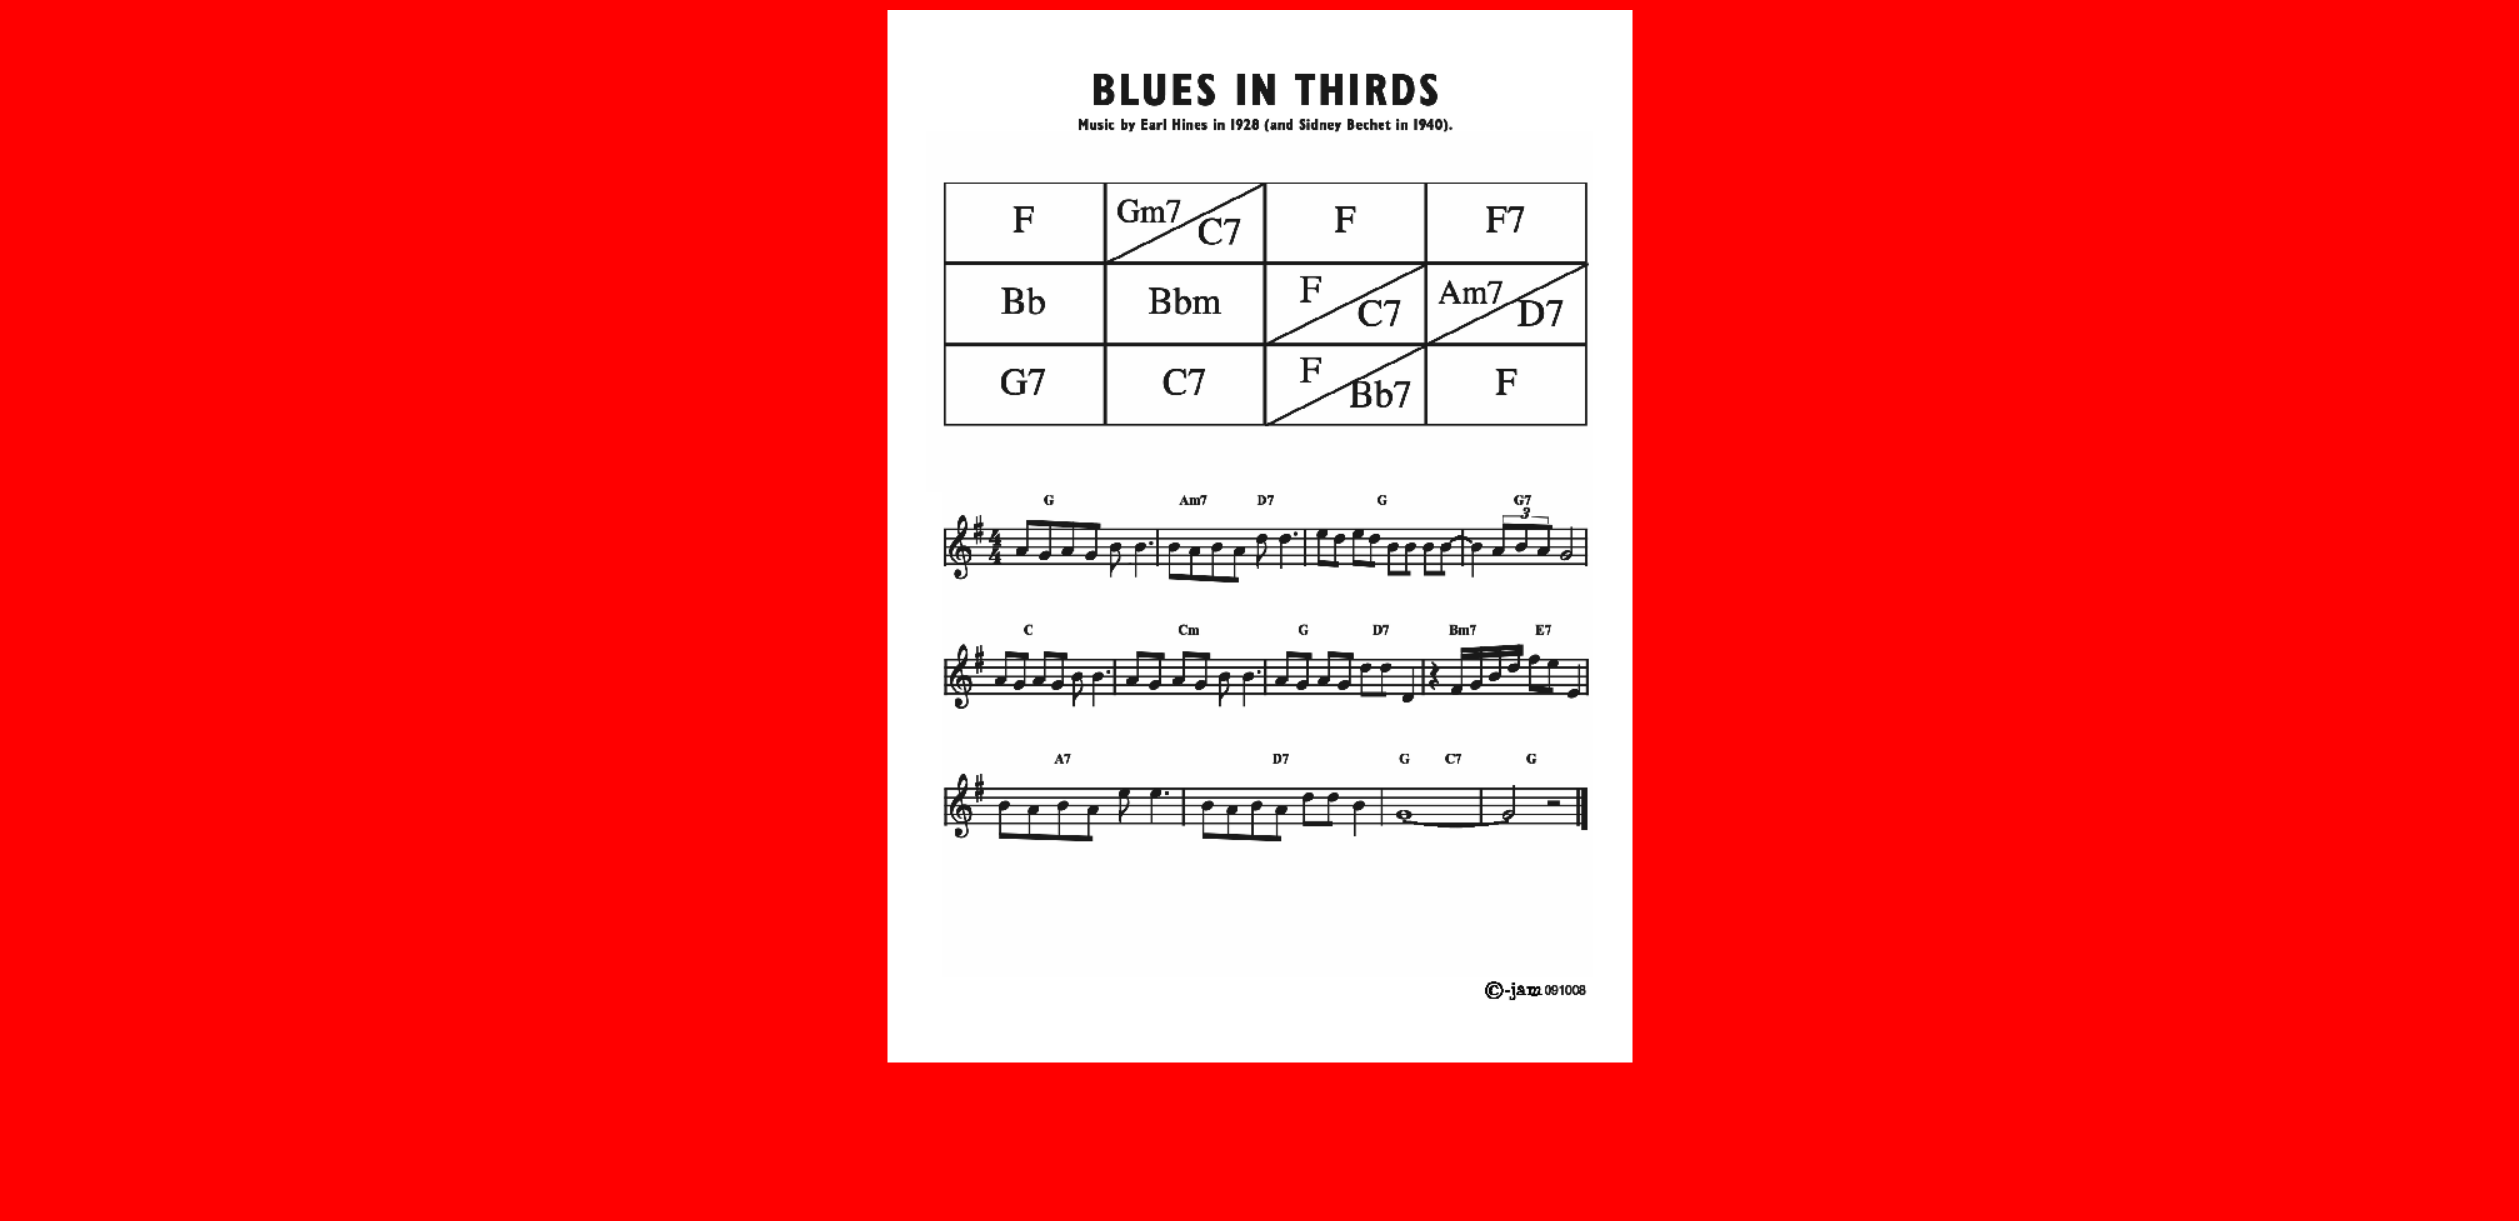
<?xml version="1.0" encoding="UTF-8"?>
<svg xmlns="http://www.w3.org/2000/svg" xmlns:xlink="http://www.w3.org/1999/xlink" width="2519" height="1221">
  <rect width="100%" height="100%" fill="#ff0000" />
  <image x="887" y="10" width="746" height="1053" xlink:href="image1.png" />
</svg>
